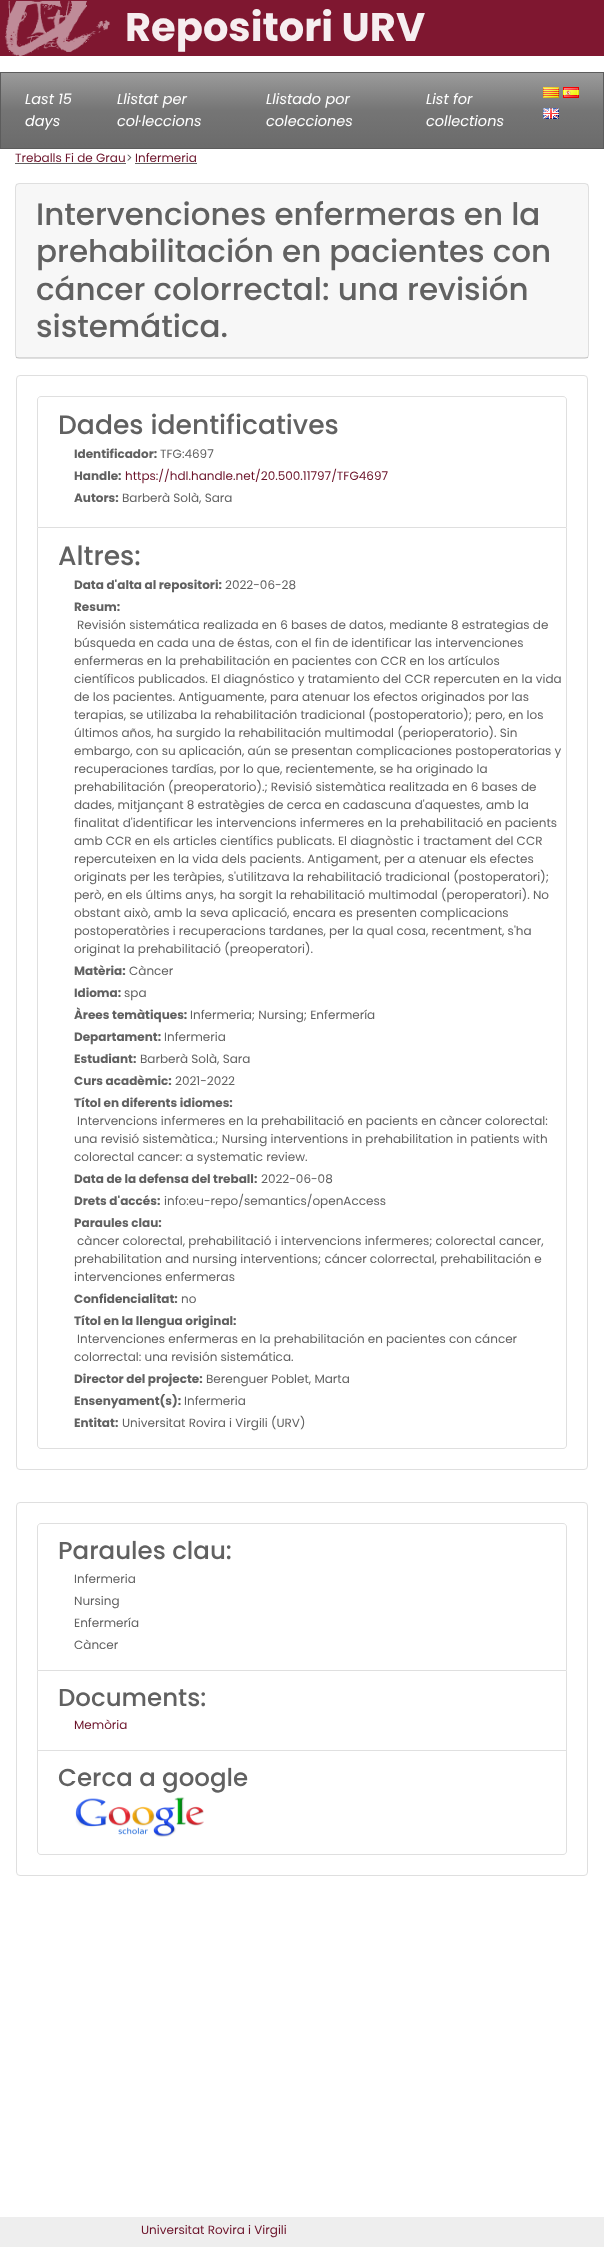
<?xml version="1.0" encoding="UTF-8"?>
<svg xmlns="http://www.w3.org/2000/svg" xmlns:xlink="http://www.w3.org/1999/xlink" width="604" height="2247">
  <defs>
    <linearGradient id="g1" gradientUnits="userSpaceOnUse" x1="302" y1="73" x2="302" y2="148"><stop offset="0" stop-color="#9b9b9b" /><stop offset="0.5" stop-color="#757575" /><stop offset="1" stop-color="#6b6b6b" /></linearGradient>
  </defs>
  <rect width="100%" height="100%" fill="#ffffff" />
  <rect width="604" height="56" fill="#7f1730" />
  <image x="5" y="0" width="105" height="56" xlink:href="image1.png" />
  <rect x="1" y="73" width="602" height="75" fill="url(#g1)" />
  <rect x="0.5" y="72.5" width="603" height="76" fill="none" stroke="#5c5c5c" />
  <image x="543" y="87" width="16" height="11" xlink:href="image2.png" />
  <image x="563" y="87" width="16" height="11" xlink:href="image3.png" />
  <image x="543" y="108" width="16" height="11" xlink:href="image4.png" />
  <rect x="15" y="163" width="111" height="1" fill="#616161" />
  <rect x="135" y="163" width="62" height="1" fill="#616161" />
  <rect x="15.5" y="183.5" width="573" height="175" rx="3.5" fill="none" stroke="#dfdfdf" />
  <rect x="16" y="184" width="572" height="174" fill="#000000" fill-opacity="0.03" />
  <rect x="16" y="357" width="572" height="1" fill="#000000" fill-opacity="0.12" />
  <rect x="16.5" y="375.5" width="571" height="1094" rx="3.5" fill="none" stroke="#dfdfdf" />
  <path d="M 41 396.5 h 522 c 2 0 3.5 1.5 3.5 3.5 v 127.5 h -529 v -127.5 c 0 -2 1.5 -3.5 3.5 -3.5 z" fill="none" stroke="#dfdfdf" />
  <path d="M 37 528 h 530 v 917 c 0 2 -2 4 -4 4 h -522 c -2 0 -4 -2 -4 -4 z m 1 0 h 528 v 917 c 0 2 -1 3 -3 3 h -522 c -2 0 -3 -1 -3 -3 z" fill="#dfdfdf" fill-rule="evenodd" />
  <rect x="16.5" y="1502.5" width="571" height="373" rx="3.5" fill="none" stroke="#dfdfdf" />
  <path d="M 41 1523.5 h 522 c 2 0 3.5 1.5 3.5 3.5 v 143.5 h -529 v -143.5 c 0 -2 1.5 -3.5 3.5 -3.5 z" fill="none" stroke="#dfdfdf" />
  <path d="M 567 1671 v 80 l -1 -1 v -79 z" fill="#dfdfdf" />
  <path d="M 567 1751 h -530 l 1 -1 h 528 z" fill="#000000" fill-opacity="0.12" />
  <path d="M 37 1751 v -80 h 1 v 79 z" fill="#000000" fill-opacity="0.12" />
  <path d="M 37 1751 h 530 v 100 c 0 2 -2 4 -4 4 h -522 c -2 0 -4 -2 -4 -4 z m 1 0 h 528 v 100 c 0 2 -1 3 -3 3 h -522 c -2 0 -3 -1 -3 -3 z" fill="#dfdfdf" fill-rule="evenodd" />
  <image x="75" y="1797" width="129" height="40" xlink:href="image5.png" />
  <rect y="2217" width="604" height="30" fill="#eeeeee" />
  <text x="125" y="41" style="font-family: Poppins; font-size: 40px; font-weight: bold; fill: #f6eef0">Repositori URV</text>
  <text x="25" y="104" style="font-family: Poppins; font-size: 14.5px; font-style: italic; fill: #ffffff">Last 15</text>
  <text x="25" y="126" style="font-family: Poppins; font-size: 14.5px; font-style: italic; fill: #ffffff">days</text>
  <text x="117" y="104" style="font-family: Poppins; font-size: 14.5px; font-style: italic; fill: #ffffff">Llistat per</text>
  <text x="117" y="126" style="font-family: Poppins; font-size: 14.5px; font-style: italic; fill: #ffffff">col·leccions</text>
  <text x="266" y="104" style="font-family: Poppins; font-size: 14.5px; font-style: italic; fill: #ffffff">Llistado por</text>
  <text x="266" y="126" style="font-family: Poppins; font-size: 14.5px; font-style: italic; fill: #ffffff">colecciones</text>
  <text x="426" y="104" style="font-family: Poppins; font-size: 14.5px; font-style: italic; fill: #ffffff">List for</text>
  <text x="426" y="126" style="font-family: Poppins; font-size: 14.5px; font-style: italic; fill: #ffffff">collections</text>
  <text x="15" y="162" style="font-family: Poppins; font-size: 12px; fill: #6b1229">Treballs Fi de Grau</text>
  <text x="126" y="162" style="font-family: Poppins; font-size: 12px; fill: #616161">&gt;</text>
  <text x="135" y="162" style="font-family: Poppins; font-size: 12px; fill: #6b1229">Infermeria</text>
  <text x="36" y="225" style="font-family: Poppins; font-size: 31px; font-weight: 500; fill: #616161">Intervenciones enfermeras en la</text>
  <text x="36" y="262" style="font-family: Poppins; font-size: 31px; font-weight: 500; fill: #616161">prehabilitación en pacientes con</text>
  <text x="36" y="300" style="font-family: Poppins; font-size: 31px; font-weight: 500; fill: #616161">cáncer colorrectal: una revisión</text>
  <text x="36" y="337" style="font-family: Poppins; font-size: 31px; font-weight: 500; fill: #616161">sistemática.</text>
  <text x="58" y="434" style="font-family: Poppins; font-size: 26.6px; font-weight: 500; fill: #616161">Dades identificatives</text>
  <text x="74" y="458" style="font-family: Poppins; font-size: 12px; font-weight: bold; fill: #616161">Identificador:</text>
  <text x="160" y="458" style="font-family: Poppins; font-size: 12px; fill: #616161">TFG:4697</text>
  <text x="74" y="480" style="font-family: Poppins; font-size: 12px; font-weight: bold; fill: #616161">Handle:</text>
  <text x="125" y="480" style="font-family: Poppins; font-size: 12px; fill: #6b1229">https://hdl.handle.net/20.500.11797/TFG4697</text>
  <text x="74" y="502" style="font-family: Poppins; font-size: 12px; font-weight: bold; fill: #616161">Autors:</text>
  <text x="122" y="502" style="font-family: Poppins; font-size: 12px; fill: #616161">Barberà Solà, Sara</text>
  <text x="58" y="565" style="font-family: Poppins; font-size: 26.6px; font-weight: 500; fill: #616161">Altres:</text>
  <text x="74" y="589" style="font-family: Poppins; font-size: 12px; font-weight: bold; fill: #616161">Data d'alta al repositori:</text>
  <text x="225" y="589" style="font-family: Poppins; font-size: 12px; fill: #616161">2022-06-28</text>
  <text x="74" y="611" style="font-family: Poppins; font-size: 12px; font-weight: bold; fill: #616161">Resum:</text>
  <text x="77" y="629" style="font-family: Poppins; font-size: 12px; fill: #616161">Revisión sistemática realizada en 6 bases de datos, mediante 8 estrategias de</text>
  <text x="74" y="647" style="font-family: Poppins; font-size: 12px; fill: #616161">búsqueda en cada una de éstas, con el fin de identificar las intervenciones</text>
  <text x="74" y="665" style="font-family: Poppins; font-size: 12px; fill: #616161">enfermeras en la prehabilitación en pacientes con CCR en los artículos</text>
  <text x="74" y="683" style="font-family: Poppins; font-size: 12px; fill: #616161">científicos publicados. El diagnóstico y tratamiento del CCR repercuten en la vida</text>
  <text x="74" y="701" style="font-family: Poppins; font-size: 12px; fill: #616161">de los pacientes. Antiguamente, para atenuar los efectos originados por las</text>
  <text x="74" y="719" style="font-family: Poppins; font-size: 12px; fill: #616161">terapias, se utilizaba la rehabilitación tradicional (postoperatorio); pero, en los</text>
  <text x="74" y="737" style="font-family: Poppins; font-size: 12px; fill: #616161">últimos años, ha surgido la rehabilitación multimodal (perioperatorio). Sin</text>
  <text x="74" y="755" style="font-family: Poppins; font-size: 12px; fill: #616161">embargo, con su aplicación, aún se presentan complicaciones postoperatorias y</text>
  <text x="74" y="773" style="font-family: Poppins; font-size: 12px; fill: #616161">recuperaciones tardías, por lo que, recientemente, se ha originado la</text>
  <text x="74" y="791" style="font-family: Poppins; font-size: 12px; fill: #616161">prehabilitación (preoperatorio).; Revisió sistemàtica realitzada en 6 bases de</text>
  <text x="74" y="809" style="font-family: Poppins; font-size: 12px; fill: #616161">dades, mitjançant 8 estratègies de cerca en cadascuna d'aquestes, amb la</text>
  <text x="74" y="827" style="font-family: Poppins; font-size: 12px; fill: #616161">finalitat d'identificar les intervencions infermeres en la prehabilitació en pacients</text>
  <text x="74" y="845" style="font-family: Poppins; font-size: 12px; fill: #616161">amb CCR en els articles científics publicats. El diagnòstic i tractament del CCR</text>
  <text x="74" y="863" style="font-family: Poppins; font-size: 12px; fill: #616161">repercuteixen en la vida dels pacients. Antigament, per a atenuar els efectes</text>
  <text x="74" y="881" style="font-family: Poppins; font-size: 12px; fill: #616161">originats per les teràpies, s'utilitzava la rehabilitació tradicional (postoperatori);</text>
  <text x="74" y="899" style="font-family: Poppins; font-size: 12px; fill: #616161">però, en els últims anys, ha sorgit la rehabilitació multimodal (peroperatori). No</text>
  <text x="74" y="917" style="font-family: Poppins; font-size: 12px; fill: #616161">obstant això, amb la seva aplicació, encara es presenten complicacions</text>
  <text x="74" y="935" style="font-family: Poppins; font-size: 12px; fill: #616161">postoperatòries i recuperacions tardanes, per la qual cosa, recentment, s'ha</text>
  <text x="74" y="953" style="font-family: Poppins; font-size: 12px; fill: #616161">originat la prehabilitació (preoperatori).</text>
  <text x="74" y="975" style="font-family: Poppins; font-size: 12px; font-weight: bold; fill: #616161">Matèria:</text>
  <text x="129" y="975" style="font-family: Poppins; font-size: 12px; fill: #616161">Càncer</text>
  <text x="74" y="997" style="font-family: Poppins; font-size: 12px; font-weight: bold; fill: #616161">Idioma:</text>
  <text x="124" y="997" style="font-family: Poppins; font-size: 12px; fill: #616161">spa</text>
  <text x="74" y="1019" style="font-family: Poppins; font-size: 12px; font-weight: bold; fill: #616161">Àrees temàtiques:</text>
  <text x="190" y="1019" style="font-family: Poppins; font-size: 12px; fill: #616161">Infermeria; Nursing; Enfermería</text>
  <text x="74" y="1041" style="font-family: Poppins; font-size: 12px; font-weight: bold; fill: #616161">Departament:</text>
  <text x="164" y="1041" style="font-family: Poppins; font-size: 12px; fill: #616161">Infermeria</text>
  <text x="74" y="1063" style="font-family: Poppins; font-size: 12px; font-weight: bold; fill: #616161">Estudiant:</text>
  <text x="140" y="1063" style="font-family: Poppins; font-size: 12px; fill: #616161">Barberà Solà, Sara</text>
  <text x="74" y="1085" style="font-family: Poppins; font-size: 12px; font-weight: bold; fill: #616161">Curs acadèmic:</text>
  <text x="175" y="1085" style="font-family: Poppins; font-size: 12px; fill: #616161">2021-2022</text>
  <text x="74" y="1107" style="font-family: Poppins; font-size: 12px; font-weight: bold; fill: #616161">Títol en diferents idiomes:</text>
  <text x="77" y="1125" style="font-family: Poppins; font-size: 12px; fill: #616161">Intervencions infermeres en la prehabilitació en pacients en càncer colorectal:</text>
  <text x="74" y="1143" style="font-family: Poppins; font-size: 12px; fill: #616161">una revisió sistemàtica.; Nursing interventions in prehabilitation in patients with</text>
  <text x="74" y="1161" style="font-family: Poppins; font-size: 12px; fill: #616161">colorectal cancer: a systematic review.</text>
  <text x="74" y="1183" style="font-family: Poppins; font-size: 12px; font-weight: bold; fill: #616161">Data de la defensa del treball:</text>
  <text x="261" y="1183" style="font-family: Poppins; font-size: 12px; fill: #616161">2022-06-08</text>
  <text x="74" y="1205" style="font-family: Poppins; font-size: 12px; font-weight: bold; fill: #616161">Drets d'accés:</text>
  <text x="164" y="1205" style="font-family: Poppins; font-size: 12px; fill: #616161">info:eu-repo/semantics/openAccess</text>
  <text x="74" y="1227" style="font-family: Poppins; font-size: 12px; font-weight: bold; fill: #616161">Paraules clau:</text>
  <text x="77" y="1245" style="font-family: Poppins; font-size: 12px; fill: #616161">càncer colorectal, prehabilitació i intervencions infermeres; colorectal cancer,</text>
  <text x="74" y="1263" style="font-family: Poppins; font-size: 12px; fill: #616161">prehabilitation and nursing interventions; cáncer colorrectal, prehabilitación e</text>
  <text x="74" y="1281" style="font-family: Poppins; font-size: 12px; fill: #616161">intervenciones enfermeras</text>
  <text x="74" y="1303" style="font-family: Poppins; font-size: 12px; font-weight: bold; fill: #616161">Confidencialitat:</text>
  <text x="181" y="1303" style="font-family: Poppins; font-size: 12px; fill: #616161">no</text>
  <text x="74" y="1325" style="font-family: Poppins; font-size: 12px; font-weight: bold; fill: #616161">Títol en la llengua original:</text>
  <text x="77" y="1343" style="font-family: Poppins; font-size: 12px; fill: #616161">Intervenciones enfermeras en la prehabilitación en pacientes con cáncer</text>
  <text x="74" y="1361" style="font-family: Poppins; font-size: 12px; fill: #616161">colorrectal: una revisión sistemática.</text>
  <text x="74" y="1383" style="font-family: Poppins; font-size: 12px; font-weight: bold; fill: #616161">Director del projecte:</text>
  <text x="206" y="1383" style="font-family: Poppins; font-size: 12px; fill: #616161">Berenguer Poblet, Marta</text>
  <text x="74" y="1405" style="font-family: Poppins; font-size: 12px; font-weight: bold; fill: #616161">Ensenyament(s):</text>
  <text x="184" y="1405" style="font-family: Poppins; font-size: 12px; fill: #616161">Infermeria</text>
  <text x="74" y="1427" style="font-family: Poppins; font-size: 12px; font-weight: bold; fill: #616161">Entitat:</text>
  <text x="122" y="1427" style="font-family: Poppins; font-size: 12px; fill: #616161">Universitat Rovira i Virgili (URV)</text>
  <text x="58" y="1559" style="font-family: Poppins; font-size: 24.5px; font-weight: 500; fill: #616161">Paraules clau:</text>
  <text x="74" y="1583" style="font-family: Poppins; font-size: 12px; fill: #616161">Infermeria</text>
  <text x="74" y="1605" style="font-family: Poppins; font-size: 12px; fill: #616161">Nursing</text>
  <text x="74" y="1627" style="font-family: Poppins; font-size: 12px; fill: #616161">Enfermería</text>
  <text x="74" y="1649" style="font-family: Poppins; font-size: 12px; fill: #616161">Càncer</text>
  <text x="58" y="1706" style="font-family: Poppins; font-size: 24.5px; font-weight: 500; fill: #616161">Documents:</text>
  <text x="74" y="1729" style="font-family: Poppins; font-size: 12px; fill: #6b1229">Memòria</text>
  <text x="58" y="1786" style="font-family: Poppins; font-size: 24.5px; font-weight: 500; fill: #616161">Cerca a google</text>
  <text x="141" y="2234" style="font-family: Poppins; font-size: 12px; fill: #6b1229">Universitat Rovira i Virgili</text>
</svg>
